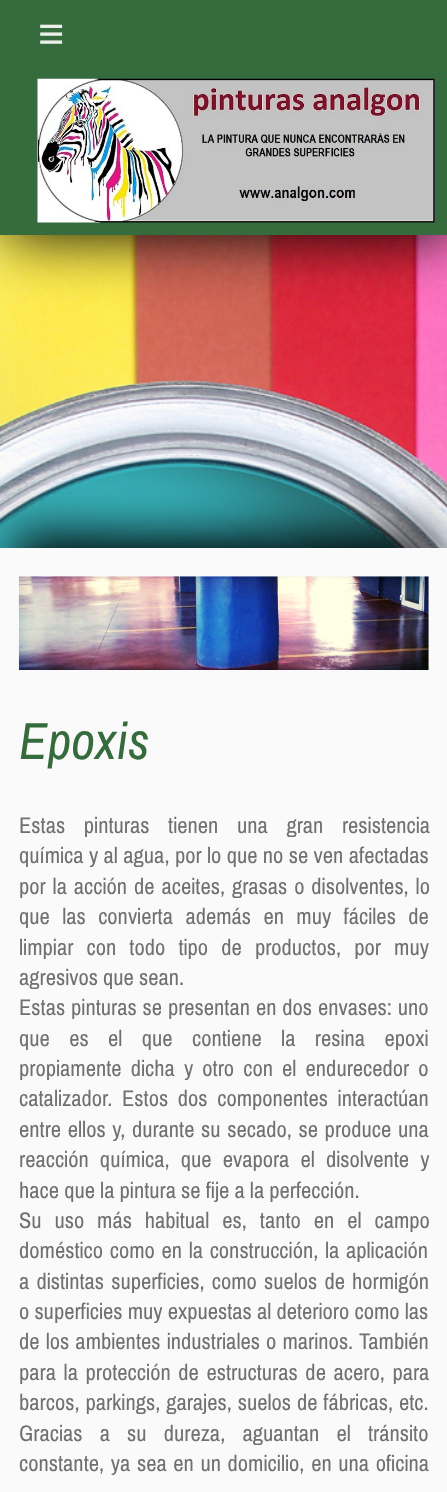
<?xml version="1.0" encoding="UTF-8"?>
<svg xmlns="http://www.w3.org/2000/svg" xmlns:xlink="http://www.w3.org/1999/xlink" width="447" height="1492">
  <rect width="100%" height="100%" fill="#ffffff" />
  <image x="0" y="235" width="447" height="313" xlink:href="image1.png" />
  <rect x="5" width="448" height="235" fill="#000000" filter="blur(31px)" />
  <rect width="447" height="235" fill="#356b3d" />
  <image x="37" y="78" width="398" height="145" xlink:href="image2.png" />
  <rect x="13" y="535" width="422" height="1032" fill="#000000" filter="blur(25px)" />
  <rect y="548" width="447" height="944" fill="#fafafa" />
  <image x="18" y="576" width="411" height="94" xlink:href="image3.png" />
  <text x="38" y="49" style="font-family: Liberation Sans; font-size: 45px; letter-spacing: 13px; fill: #ebf0ec">≡</text>
  <text x="19" y="759" style="font-family: Archivo Narrow; font-size: 52px; font-style: italic; fill: #356b3d">Epoxis</text>
  <text x="19" y="833" word-spacing="13.5" style="font-family: Archivo Narrow; font-size: 22.5px; fill: #707070">Estas pinturas tienen una gran resistencia</text>
  <text x="19" y="863" word-spacing="0.25" style="font-family: Archivo Narrow; font-size: 22.5px; fill: #707070">química y al agua, por lo que no se ven afectadas</text>
  <text x="19" y="894" word-spacing="1.75" style="font-family: Archivo Narrow; font-size: 22.5px; fill: #707070">por la acción de aceites, grasas o disolventes, lo</text>
  <text x="19" y="924" word-spacing="7.25" style="font-family: Archivo Narrow; font-size: 22.5px; fill: #707070">que las convierta además en muy fáciles de</text>
  <text x="19" y="955" word-spacing="8" style="font-family: Archivo Narrow; font-size: 22.5px; fill: #707070">limpiar con todo tipo de productos, por muy</text>
  <text x="19" y="985" style="font-family: Archivo Narrow; font-size: 22.5px; fill: #707070">agresivos que sean.</text>
  <text x="19" y="1015" word-spacing="0.75" style="font-family: Archivo Narrow; font-size: 22.5px; fill: #707070">Estas pinturas se presentan en dos envases: uno</text>
  <text x="19" y="1046" word-spacing="14.25" style="font-family: Archivo Narrow; font-size: 22.5px; fill: #707070">que es el que contiene la resina epoxi</text>
  <text x="19" y="1076" word-spacing="4" style="font-family: Archivo Narrow; font-size: 22.5px; fill: #707070">propiamente dicha y otro con el endurecedor o</text>
  <text x="19" y="1106" word-spacing="4.5" style="font-family: Archivo Narrow; font-size: 22.5px; fill: #707070">catalizador. Estos dos componentes interactúan</text>
  <text x="19" y="1137" word-spacing="1.5" style="font-family: Archivo Narrow; font-size: 22.5px; fill: #707070">entre ellos y, durante su secado, se produce una</text>
  <text x="19" y="1167" word-spacing="6" style="font-family: Archivo Narrow; font-size: 22.5px; fill: #707070">reacción química, que evapora el disolvente y</text>
  <text x="19" y="1198" style="font-family: Archivo Narrow; font-size: 22.5px; fill: #707070">hace que la pintura se fije a la perfección.</text>
  <text x="19" y="1228" word-spacing="7.75" style="font-family: Archivo Narrow; font-size: 22.5px; fill: #707070">Su uso más habitual es, tanto en el campo</text>
  <text x="19" y="1258" word-spacing="1.5" style="font-family: Archivo Narrow; font-size: 22.5px; fill: #707070">doméstico como en la construcción, la aplicación</text>
  <text x="19" y="1289" word-spacing="2" style="font-family: Archivo Narrow; font-size: 22.5px; fill: #707070">a distintas superficies, como suelos de hormigón</text>
  <text x="19" y="1319" style="font-family: Archivo Narrow; font-size: 22.5px; fill: #707070">o superficies muy expuestas al deterioro como las</text>
  <text x="19" y="1349" word-spacing="1" style="font-family: Archivo Narrow; font-size: 22.5px; fill: #707070">de los ambientes industriales o marinos. También</text>
  <text x="19" y="1380" word-spacing="2.5" style="font-family: Archivo Narrow; font-size: 22.5px; fill: #707070">para la protección de estructuras de acero, para</text>
  <text x="19" y="1410" word-spacing="0.75" style="font-family: Archivo Narrow; font-size: 22.5px; fill: #707070">barcos, parkings, garajes, suelos de fábricas, etc.</text>
  <text x="19" y="1441" word-spacing="12" style="font-family: Archivo Narrow; font-size: 22.5px; fill: #707070">Gracias a su dureza, aguantan el tránsito</text>
  <text x="19" y="1471" word-spacing="1.5" style="font-family: Archivo Narrow; font-size: 22.5px; fill: #707070">constante, ya sea en un domicilio, en una oficina</text>
</svg>
